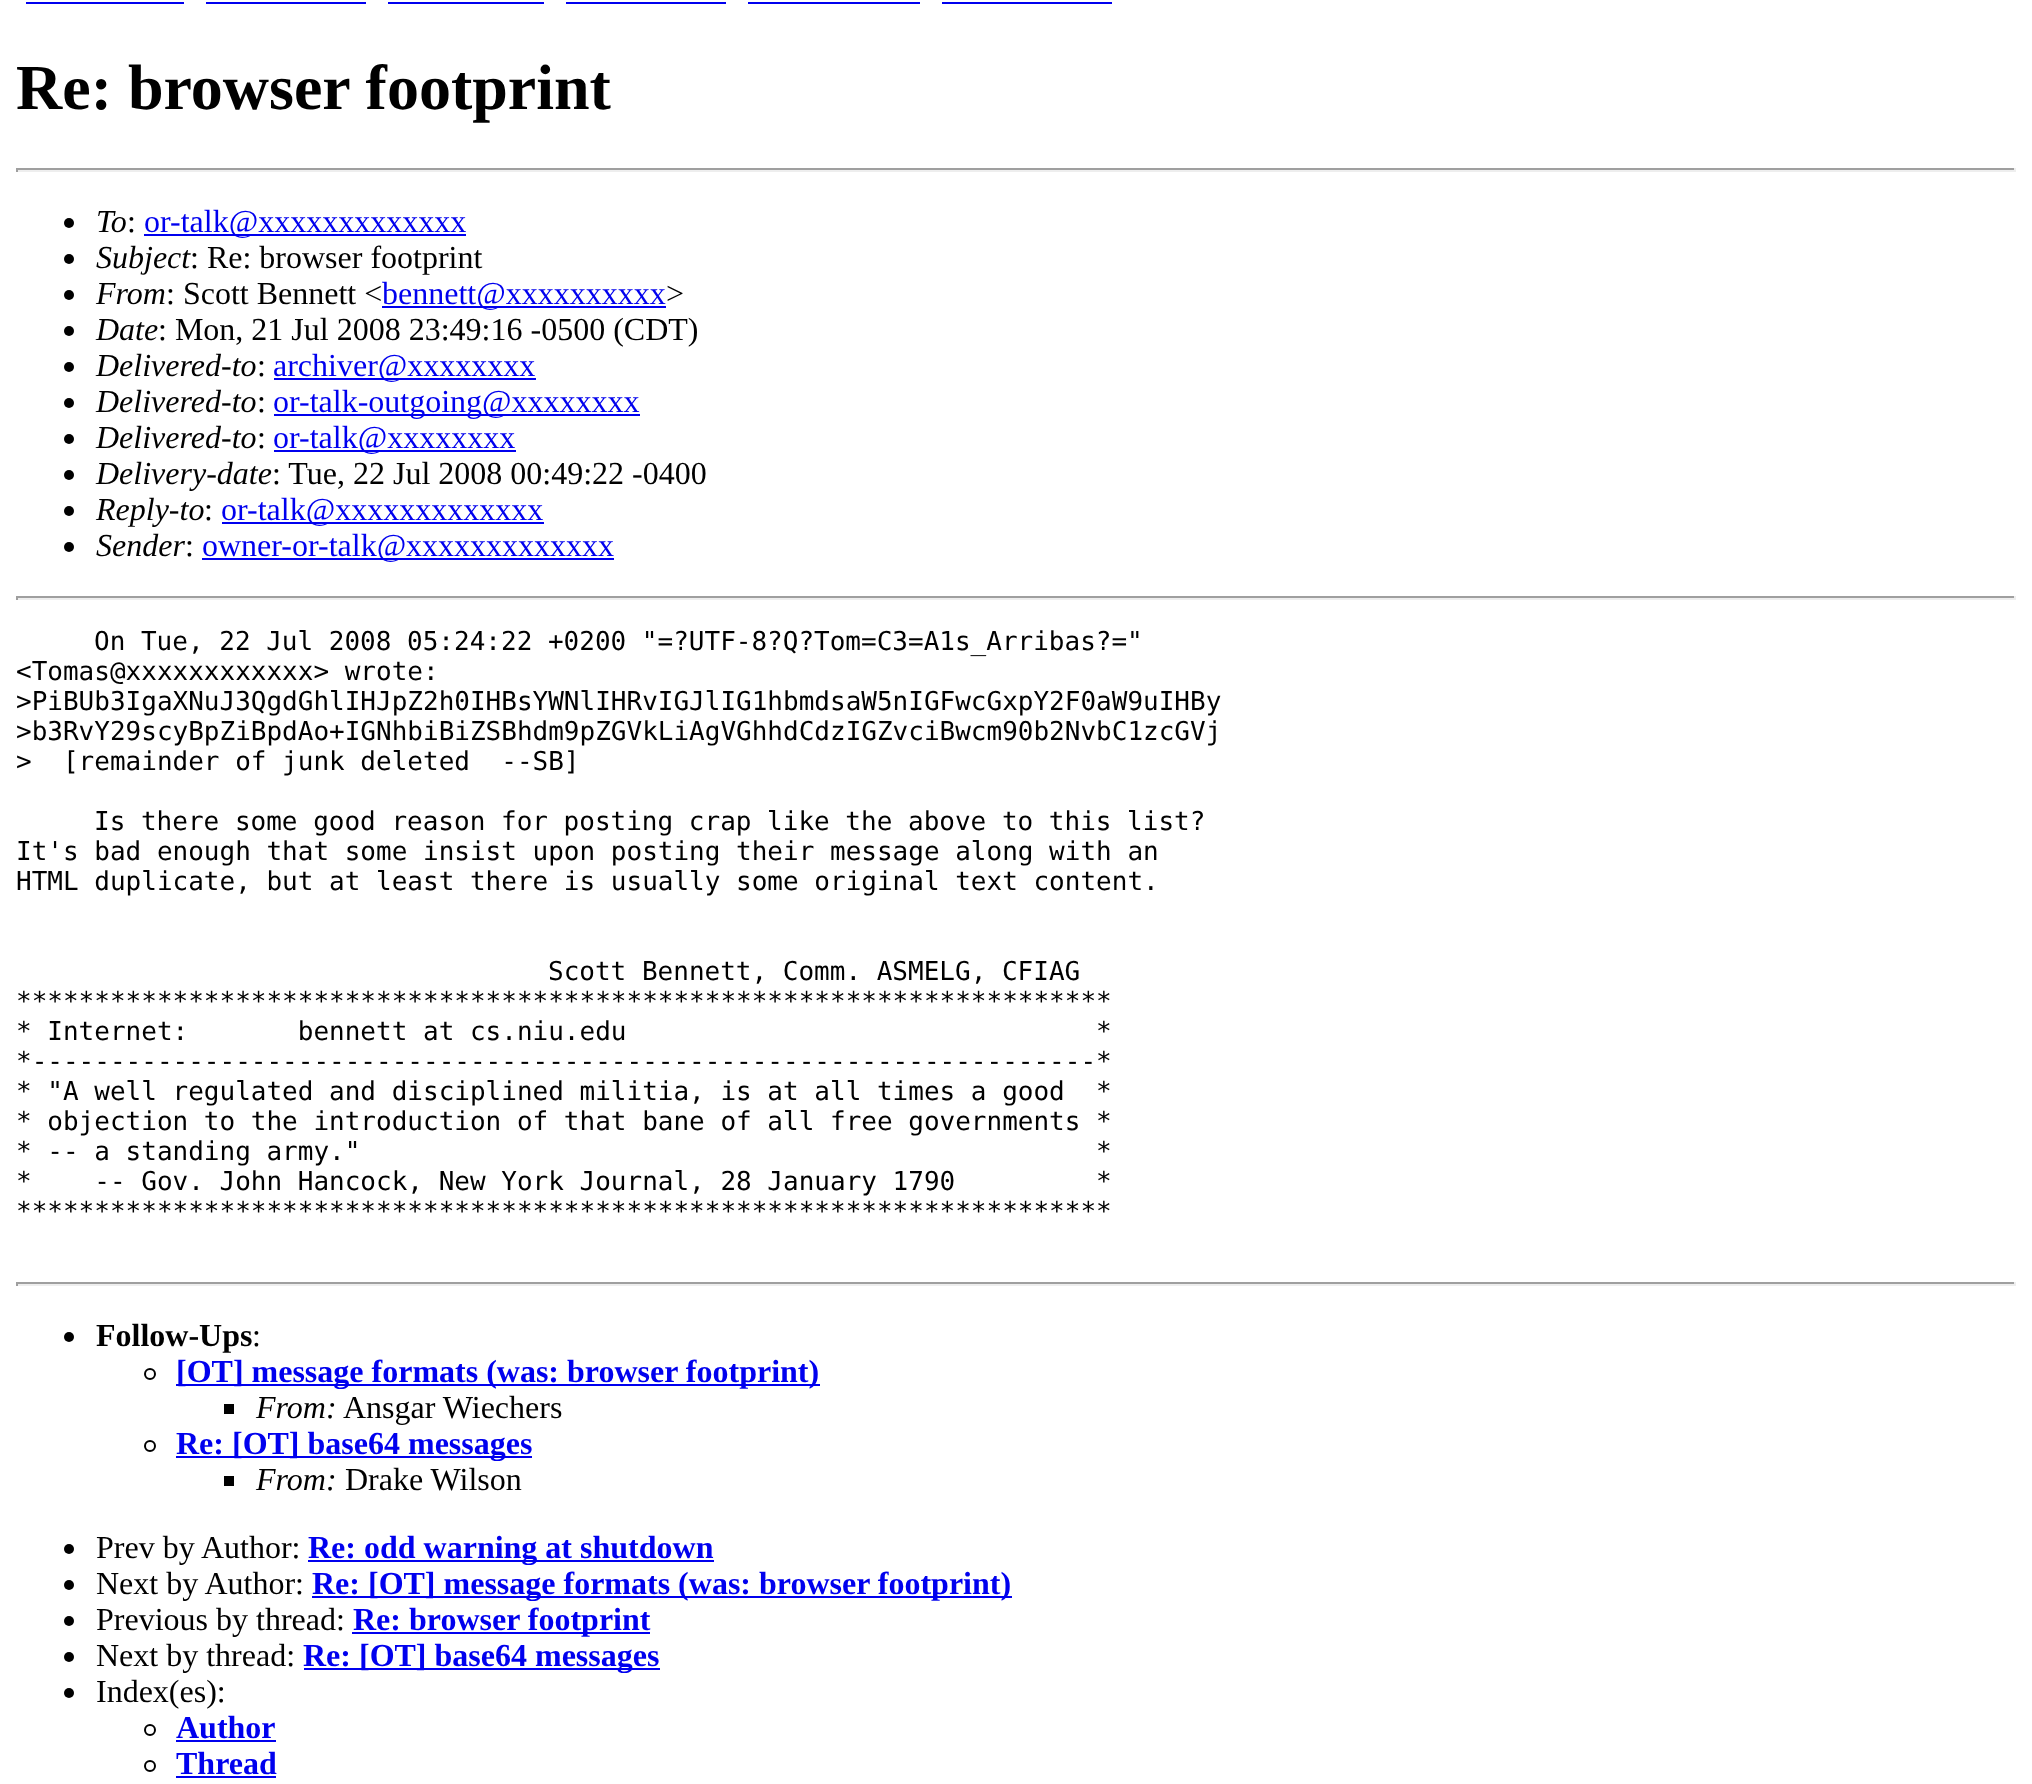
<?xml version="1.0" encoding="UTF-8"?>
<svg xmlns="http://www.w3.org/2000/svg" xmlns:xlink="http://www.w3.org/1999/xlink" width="2032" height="1784">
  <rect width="100%" height="100%" fill="#ffffff" />
  <rect x="26" y="2" width="158" height="2" fill="#0000ee" />
  <rect x="206" y="2" width="160" height="2" fill="#0000ee" />
  <rect x="388" y="2" width="156" height="2" fill="#0000ee" />
  <rect x="566" y="2" width="160" height="2" fill="#0000ee" />
  <rect x="748" y="2" width="172" height="2" fill="#0000ee" />
  <rect x="942" y="2" width="170" height="2" fill="#0000ee" />
  <rect x="16" y="168" width="2000" height="2" fill="#9f9f9f" />
  <rect x="2014" y="168" width="2" height="4" fill="#eeeeee" />
  <rect x="16" y="170" width="2000" height="2" fill="#eeeeee" />
  <rect x="16" y="168" width="2" height="4" fill="#9f9f9f" />
  <circle cx="69" cy="223" r="5" fill="#000000" />
  <rect x="144" y="234" width="322" height="2" fill="#0000ee" />
  <circle cx="69" cy="259" r="5" fill="#000000" />
  <circle cx="69" cy="295" r="5" fill="#000000" />
  <rect x="382" y="306" width="284" height="2" fill="#0000ee" />
  <circle cx="69" cy="331" r="5" fill="#000000" />
  <circle cx="69" cy="367" r="5" fill="#000000" />
  <rect x="274" y="378" width="262" height="2" fill="#0000ee" />
  <circle cx="69" cy="403" r="5" fill="#000000" />
  <rect x="274" y="414" width="366" height="2" fill="#0000ee" />
  <circle cx="69" cy="439" r="5" fill="#000000" />
  <rect x="274" y="450" width="242" height="2" fill="#0000ee" />
  <circle cx="69" cy="475" r="5" fill="#000000" />
  <circle cx="69" cy="511" r="5" fill="#000000" />
  <rect x="222" y="522" width="322" height="2" fill="#0000ee" />
  <circle cx="69" cy="547" r="5" fill="#000000" />
  <rect x="202" y="558" width="412" height="2" fill="#0000ee" />
  <rect x="16" y="596" width="2000" height="2" fill="#9f9f9f" />
  <rect x="2014" y="596" width="2" height="4" fill="#eeeeee" />
  <rect x="16" y="598" width="2000" height="2" fill="#eeeeee" />
  <rect x="16" y="596" width="2" height="4" fill="#9f9f9f" />
  <rect x="16" y="1282" width="2000" height="2" fill="#9f9f9f" />
  <rect x="2014" y="1282" width="2" height="4" fill="#eeeeee" />
  <rect x="16" y="1284" width="2000" height="2" fill="#eeeeee" />
  <rect x="16" y="1282" width="2" height="4" fill="#9f9f9f" />
  <circle cx="69" cy="1337" r="5" fill="#000000" />
  <circle cx="150" cy="1374" r="5" fill="none" stroke="#000000" stroke-width="2" />
  <rect x="176" y="1384" width="644" height="2" fill="#0000ee" />
  <rect x="224" y="1404" width="10" height="10" fill="#000000" />
  <circle cx="150" cy="1446" r="5" fill="none" stroke="#000000" stroke-width="2" />
  <rect x="176" y="1456" width="356" height="2" fill="#0000ee" />
  <rect x="224" y="1476" width="10" height="10" fill="#000000" />
  <circle cx="69" cy="1549" r="5" fill="#000000" />
  <rect x="308" y="1560" width="406" height="2" fill="#0000ee" />
  <circle cx="69" cy="1585" r="5" fill="#000000" />
  <rect x="312" y="1596" width="700" height="2" fill="#0000ee" />
  <circle cx="69" cy="1621" r="5" fill="#000000" />
  <rect x="352" y="1632" width="298" height="2" fill="#0000ee" />
  <circle cx="69" cy="1657" r="5" fill="#000000" />
  <rect x="304" y="1668" width="356" height="2" fill="#0000ee" />
  <circle cx="69" cy="1693" r="5" fill="#000000" />
  <circle cx="150" cy="1730" r="5" fill="none" stroke="#000000" stroke-width="2" />
  <rect x="176" y="1740" width="100" height="2" fill="#0000ee" />
  <circle cx="150" cy="1766" r="5" fill="none" stroke="#000000" stroke-width="2" />
  <rect x="176" y="1776" width="100" height="2" fill="#0000ee" />
  <text x="16" y="109" style="font-family: Liberation Serif; font-size: 64px; font-weight: bold; fill: #000000">Re: browser footprint</text>
  <text x="96" y="232" style="font-family: Liberation Serif; font-size: 32px; font-style: italic; fill: #000000">To</text>
  <text x="127" y="232" style="font-family: Liberation Serif; font-size: 32px; fill: #000000">:</text>
  <text x="144" y="232" style="font-family: Liberation Serif; font-size: 32px; fill: #0000ee">or-talk@xxxxxxxxxxxxx</text>
  <text x="96" y="268" style="font-family: Liberation Serif; font-size: 32px; font-style: italic; fill: #000000">Subject</text>
  <text x="190" y="268" style="font-family: Liberation Serif; font-size: 32px; fill: #000000">: Re: browser footprint</text>
  <text x="96" y="304" style="font-family: Liberation Serif; font-size: 32px; font-style: italic; fill: #000000">From</text>
  <text x="166" y="304" style="font-family: Liberation Serif; font-size: 32px; fill: #000000">: Scott Bennett &lt;</text>
  <text x="382" y="304" style="font-family: Liberation Serif; font-size: 32px; fill: #0000ee">bennett@xxxxxxxxxx</text>
  <text x="666" y="304" style="font-family: Liberation Serif; font-size: 32px; fill: #000000">&gt;</text>
  <text x="96" y="340" style="font-family: Liberation Serif; font-size: 32px; font-style: italic; fill: #000000">Date</text>
  <text x="158" y="340" style="font-family: Liberation Serif; font-size: 32px; fill: #000000">: Mon, 21 Jul 2008 23:49:16 -0500 (CDT)</text>
  <text x="96" y="376" style="font-family: Liberation Serif; font-size: 32px; font-style: italic; fill: #000000">Delivered-to</text>
  <text x="257" y="376" style="font-family: Liberation Serif; font-size: 32px; fill: #000000">:</text>
  <text x="273" y="376" style="font-family: Liberation Serif; font-size: 32px; fill: #0000ee">archiver@xxxxxxxx</text>
  <text x="96" y="412" style="font-family: Liberation Serif; font-size: 32px; font-style: italic; fill: #000000">Delivered-to</text>
  <text x="257" y="412" style="font-family: Liberation Serif; font-size: 32px; fill: #000000">:</text>
  <text x="273" y="412" style="font-family: Liberation Serif; font-size: 32px; fill: #0000ee">or-talk-outgoing@xxxxxxxx</text>
  <text x="96" y="448" style="font-family: Liberation Serif; font-size: 32px; font-style: italic; fill: #000000">Delivered-to</text>
  <text x="257" y="448" style="font-family: Liberation Serif; font-size: 32px; fill: #000000">:</text>
  <text x="273" y="448" style="font-family: Liberation Serif; font-size: 32px; fill: #0000ee">or-talk@xxxxxxxx</text>
  <text x="96" y="484" style="font-family: Liberation Serif; font-size: 32px; font-style: italic; fill: #000000">Delivery-date</text>
  <text x="272" y="484" style="font-family: Liberation Serif; font-size: 32px; fill: #000000">: Tue, 22 Jul 2008 00:49:22 -0400</text>
  <text x="96" y="520" style="font-family: Liberation Serif; font-size: 32px; font-style: italic; fill: #000000">Reply-to</text>
  <text x="204" y="520" style="font-family: Liberation Serif; font-size: 32px; fill: #000000">:</text>
  <text x="221" y="520" style="font-family: Liberation Serif; font-size: 32px; fill: #0000ee">or-talk@xxxxxxxxxxxxx</text>
  <text x="96" y="556" style="font-family: Liberation Serif; font-size: 32px; font-style: italic; fill: #000000">Sender</text>
  <text x="185" y="556" style="font-family: Liberation Serif; font-size: 32px; fill: #000000">:</text>
  <text x="202" y="556" style="font-family: Liberation Serif; font-size: 32px; fill: #0000ee">owner-or-talk@xxxxxxxxxxxxx</text>
  <text x="94" y="650" style="font-family: DejaVu Sans Mono; font-size: 26px; fill: #000000">On Tue, 22 Jul 2008 05:24:22 +0200 "=?UTF-8?Q?Tom=C3=A1s_Arribas?="</text>
  <text x="16" y="680" style="font-family: DejaVu Sans Mono; font-size: 26px; fill: #000000">&lt;Tomas@xxxxxxxxxxxx&gt; wrote:</text>
  <text x="16" y="710" style="font-family: DejaVu Sans Mono; font-size: 26px; fill: #000000">&gt;PiBUb3IgaXNuJ3QgdGhlIHJpZ2h0IHBsYWNlIHRvIGJlIG1hbmdsaW5nIGFwcGxpY2F0aW9uIHBy</text>
  <text x="16" y="740" style="font-family: DejaVu Sans Mono; font-size: 26px; fill: #000000">&gt;b3RvY29scyBpZiBpdAo+IGNhbiBiZSBhdm9pZGVkLiAgVGhhdCdzIGZvciBwcm90b2NvbC1zcGVj</text>
  <text x="16" y="770" style="font-family: DejaVu Sans Mono; font-size: 26px; fill: #000000" xml:space="preserve">&gt;  [remainder of junk deleted  --SB]</text>
  <text x="94" y="830" style="font-family: DejaVu Sans Mono; font-size: 26px; fill: #000000">Is there some good reason for posting crap like the above to this list?</text>
  <text x="16" y="860" style="font-family: DejaVu Sans Mono; font-size: 26px; fill: #000000">It's bad enough that some insist upon posting their message along with an</text>
  <text x="16" y="890" style="font-family: DejaVu Sans Mono; font-size: 26px; fill: #000000">HTML duplicate, but at least there is usually some original text content.</text>
  <text x="548" y="980" style="font-family: DejaVu Sans Mono; font-size: 26px; fill: #000000">Scott Bennett, Comm. ASMELG, CFIAG</text>
  <text x="16" y="1010" style="font-family: DejaVu Sans Mono; font-size: 26px; fill: #000000">**********************************************************************</text>
  <text x="16" y="1040" style="font-family: DejaVu Sans Mono; font-size: 26px; fill: #000000" xml:space="preserve">* Internet:       bennett at cs.niu.edu                              *</text>
  <text x="16" y="1070" style="font-family: DejaVu Sans Mono; font-size: 26px; fill: #000000">*--------------------------------------------------------------------*</text>
  <text x="16" y="1100" style="font-family: DejaVu Sans Mono; font-size: 26px; fill: #000000" xml:space="preserve">* "A well regulated and disciplined militia, is at all times a good  *</text>
  <text x="16" y="1130" style="font-family: DejaVu Sans Mono; font-size: 26px; fill: #000000">* objection to the introduction of that bane of all free governments *</text>
  <text x="16" y="1160" style="font-family: DejaVu Sans Mono; font-size: 26px; fill: #000000" xml:space="preserve">* -- a standing army."                                               *</text>
  <text x="16" y="1190" style="font-family: DejaVu Sans Mono; font-size: 26px; fill: #000000" xml:space="preserve">*    -- Gov. John Hancock, New York Journal, 28 January 1790         *</text>
  <text x="16" y="1220" style="font-family: DejaVu Sans Mono; font-size: 26px; fill: #000000">**********************************************************************</text>
  <text x="96" y="1346" style="font-family: Liberation Serif; font-size: 32px; font-weight: bold; fill: #000000">Follow-Ups</text>
  <text x="252" y="1346" style="font-family: Liberation Serif; font-size: 32px; fill: #000000">:</text>
  <text x="176" y="1382" style="font-family: Liberation Serif; font-size: 32px; font-weight: bold; fill: #0000ee">[OT] message formats (was: browser footprint)</text>
  <text x="256" y="1418" style="font-family: Liberation Serif; font-size: 32px; font-style: italic; fill: #000000">From:</text>
  <text x="343" y="1418" style="font-family: Liberation Serif; font-size: 32px; fill: #000000">Ansgar Wiechers</text>
  <text x="176" y="1454" style="font-family: Liberation Serif; font-size: 32px; font-weight: bold; fill: #0000ee">Re: [OT] base64 messages</text>
  <text x="256" y="1490" style="font-family: Liberation Serif; font-size: 32px; font-style: italic; fill: #000000">From:</text>
  <text x="345" y="1490" style="font-family: Liberation Serif; font-size: 32px; fill: #000000">Drake Wilson</text>
  <text x="96" y="1558" style="font-family: Liberation Serif; font-size: 32px; fill: #000000">Prev by Author:</text>
  <text x="308" y="1558" style="font-family: Liberation Serif; font-size: 32px; font-weight: bold; fill: #0000ee">Re: odd warning at shutdown</text>
  <text x="96" y="1594" style="font-family: Liberation Serif; font-size: 32px; fill: #000000">Next by Author:</text>
  <text x="312" y="1594" style="font-family: Liberation Serif; font-size: 32px; font-weight: bold; fill: #0000ee">Re: [OT] message formats (was: browser footprint)</text>
  <text x="96" y="1630" style="font-family: Liberation Serif; font-size: 32px; fill: #000000">Previous by thread:</text>
  <text x="353" y="1630" style="font-family: Liberation Serif; font-size: 32px; font-weight: bold; fill: #0000ee">Re: browser footprint</text>
  <text x="96" y="1666" style="font-family: Liberation Serif; font-size: 32px; fill: #000000">Next by thread:</text>
  <text x="303" y="1666" style="font-family: Liberation Serif; font-size: 32px; font-weight: bold; fill: #0000ee">Re: [OT] base64 messages</text>
  <text x="96" y="1702" style="font-family: Liberation Serif; font-size: 32px; fill: #000000">Index(es):</text>
  <text x="176" y="1738" style="font-family: Liberation Serif; font-size: 32px; font-weight: bold; fill: #0000ee">Author</text>
  <text x="176" y="1774" style="font-family: Liberation Serif; font-size: 32px; font-weight: bold; fill: #0000ee">Thread</text>
</svg>
